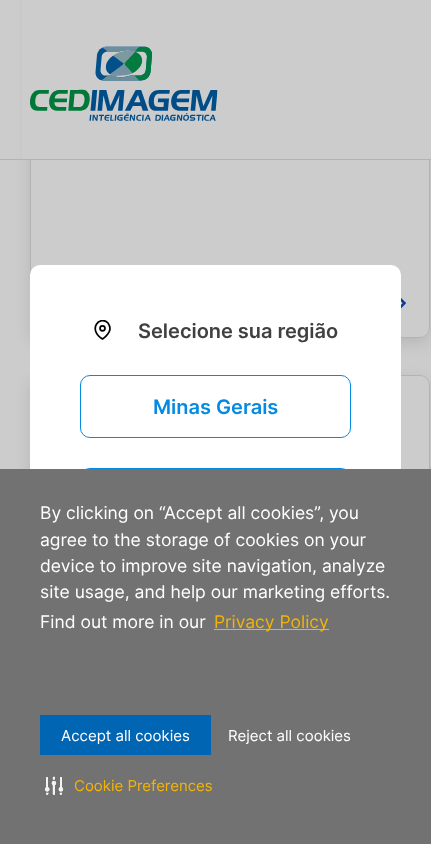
<?xml version="1.0" encoding="UTF-8"?>
<svg xmlns="http://www.w3.org/2000/svg" xmlns:xlink="http://www.w3.org/1999/xlink" width="431" height="844">
  <defs>
    <clipPath id="clip1"><path d="M 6 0 h 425 v 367 h -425 z m 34 -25 h 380 c 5.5 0 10 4.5 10 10 v 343 c 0 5.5 -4.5 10 -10 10 h -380 c -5.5 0 -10 -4.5 -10 -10 v -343 c 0 -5.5 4.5 -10 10 -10 z" clip-rule="evenodd" /></clipPath>
    <clipPath id="clip2"><path d="M 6 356 h 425 v 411 h -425 z m 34 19 h 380 c 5.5 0 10 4.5 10 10 v 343 c 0 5.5 -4.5 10 -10 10 h -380 c -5.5 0 -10 -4.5 -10 -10 v -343 c 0 -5.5 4.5 -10 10 -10 z" clip-rule="evenodd" /></clipPath>
    <clipPath id="clip3"><rect x="93" y="320" width="20" height="20" /></clipPath>
  </defs>
  <rect width="100%" height="100%" fill="#cccccc" />
  <g clip-path="url(#clip1)">
    <rect x="30" y="-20" width="400" height="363" rx="10" fill="#000000" fill-opacity="0.1" filter="blur(7.5px)" />
  </g>
  <rect x="30.5" y="-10.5" width="399" height="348" rx="9.5" fill="none" stroke="#b3b3b3" />
  <image x="401" y="298" width="5" height="11" xlink:href="image1.png" />
  <g clip-path="url(#clip2)">
    <rect x="30" y="380" width="400" height="363" rx="10" fill="#000000" fill-opacity="0.1" filter="blur(7.5px)" />
  </g>
  <rect x="30.5" y="375.5" width="399" height="362" rx="9.5" fill="none" stroke="#b3b3b3" />
  <rect x="22" width="409" height="159" fill="#cccccc" />
  <rect y="159" width="431" height="1" fill="#b3b3b3" />
  <image x="30" y="46" width="188" height="75" xlink:href="image2.png" />
  <rect x="30" y="265" width="371" height="315" rx="10" fill="#ffffff" />
  <g clip-path="url(#clip3)">
    <path d="M 110 328.5 c 0 5.5 -7.5 10.5 -7.5 10.5 c -15.5 -10 -2.5 -24 5.5 -16 c 1 1.5 2 3.5 2 5.5 z" fill="none" stroke="#000000" stroke-width="1.7" stroke-linecap="round" stroke-linejoin="round" />
  </g>
  <circle cx="102.5" cy="328.3" r="2.5" fill="none" stroke="#000000" stroke-width="1.7" />
  <rect x="80.5" y="375.5" width="270" height="62" rx="9.5" fill="none" stroke="#048ae0" />
  <rect x="80.5" y="468.5" width="270" height="61" rx="9.5" fill="none" stroke="#048ae0" />
  <rect y="469" width="431" height="375" fill="#727272" />
  <rect x="214" y="629" width="115" height="1" fill="#f2b407" />
  <rect x="40" y="715" width="171" height="40" fill="#0065b3" />
  <image x="45" y="776" width="19" height="19" xlink:href="image3.png" />
  <text x="138" y="338" style="font-family: Inter; font-size: 20px; font-weight: 600; fill: #404040">Selecione sua região</text>
  <text x="153" y="414" style="font-family: Inter; font-size: 20px; font-weight: 600; fill: #048ae0">Minas Gerais</text>
  <text x="40" y="519" style="font-family: Inter; font-size: 17.5px; fill: #ffffff">By clicking on “Accept all cookies”, you</text>
  <text x="40" y="546" style="font-family: Inter; font-size: 17.5px; fill: #ffffff">agree to the storage of cookies on your</text>
  <text x="40" y="572" style="font-family: Inter; font-size: 17.5px; fill: #ffffff">device to improve site navigation, analyze</text>
  <text x="40" y="598" style="font-family: Inter; font-size: 17.5px; fill: #ffffff">site usage, and help our marketing efforts.</text>
  <text x="40" y="628" style="font-family: Inter; font-size: 17.5px; fill: #ffffff">Find out more in our</text>
  <text x="214" y="628" style="font-family: Inter; font-size: 17.5px; fill: #f2b407">Privacy Policy</text>
  <text x="61" y="741" style="font-family: Inter; font-size: 15px; fill: #ffffff">Accept all cookies</text>
  <text x="228" y="741" style="font-family: Inter; font-size: 15px; fill: #ffffff">Reject all cookies</text>
  <text x="74" y="791" style="font-family: Inter; font-size: 15px; fill: #f2b407">Cookie Preferences</text>
</svg>
